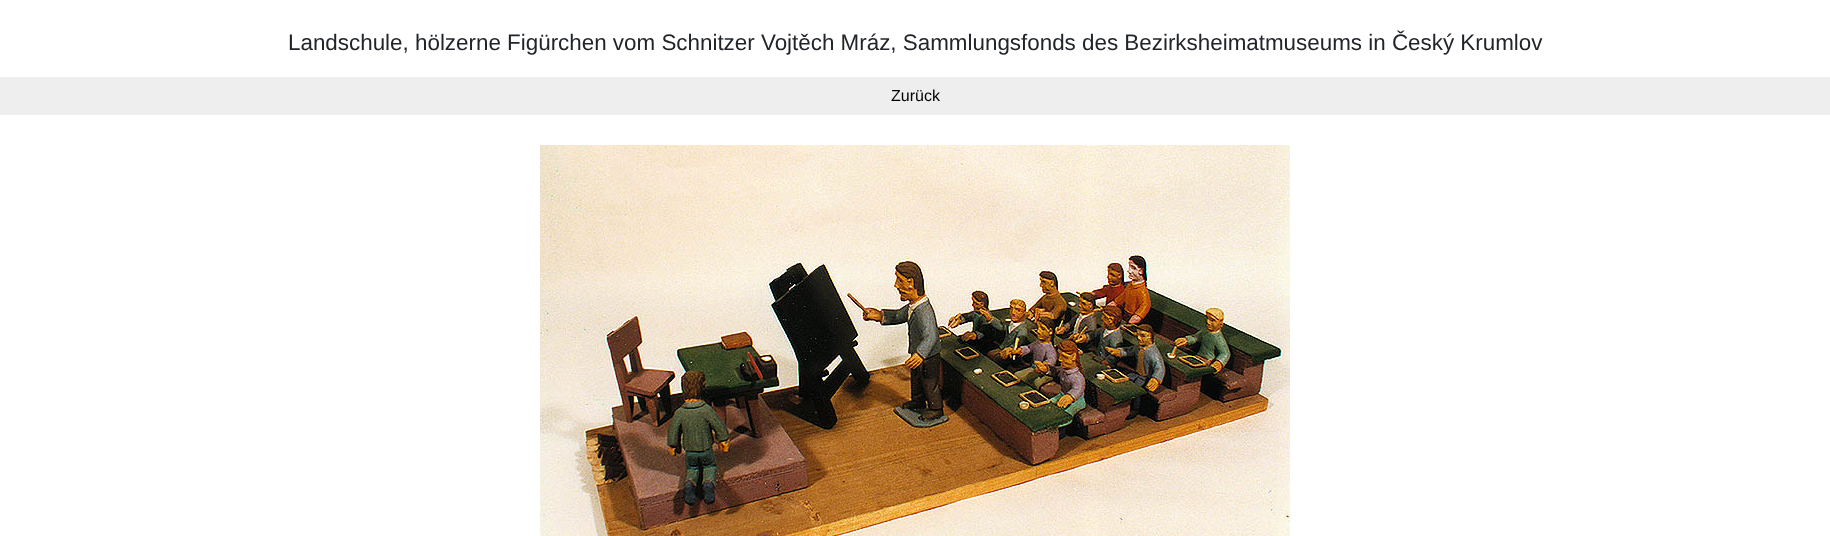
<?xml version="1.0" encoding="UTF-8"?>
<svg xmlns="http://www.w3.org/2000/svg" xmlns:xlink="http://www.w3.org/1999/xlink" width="1830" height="536">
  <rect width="100%" height="100%" fill="#ffffff" />
  <rect y="77" width="1830" height="38" fill="#eeeeee" />
  <image x="540" y="145" width="750" height="391" xlink:href="image1.png" />
  <text x="288" y="50" style="font-family: Liberation Sans; font-size: 22.4px; fill: #212529">Landschule, hölzerne Figürchen vom Schnitzer Vojtěch Mráz, Sammlungsfonds des Bezirksheimatmuseums in Český Krumlov</text>
  <text x="891" y="101" style="font-family: Liberation Sans; font-size: 16px; fill: #000000">Zurück</text>
</svg>
